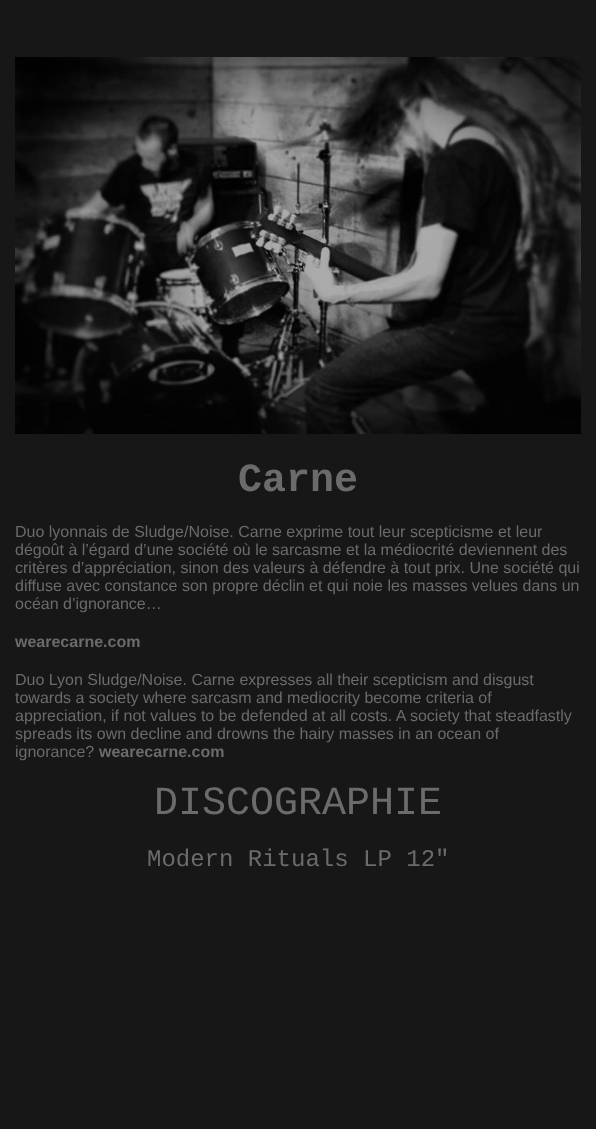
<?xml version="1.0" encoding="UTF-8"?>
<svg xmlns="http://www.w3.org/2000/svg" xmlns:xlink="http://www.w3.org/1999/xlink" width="596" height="1129">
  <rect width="100%" height="100%" fill="#171717" />
  <image x="15" y="57" width="566" height="377" xlink:href="image1.png" />
  <text x="238" y="491" style="font-family: Liberation Mono; font-size: 40px; font-weight: bold; fill: #6b6b6b">Carne</text>
  <text x="15" y="537" style="font-family: Liberation Sans; font-size: 16px; fill: #6b6b6b">Duo lyonnais de Sludge/Noise. Carne exprime tout leur scepticisme et leur</text>
  <text x="15" y="555" style="font-family: Liberation Sans; font-size: 16px; fill: #6b6b6b">dégoût à l’égard d’une société où le sarcasme et la médiocrité deviennent des</text>
  <text x="15" y="573" style="font-family: Liberation Sans; font-size: 16px; fill: #6b6b6b">critères d’appréciation, sinon des valeurs à défendre à tout prix. Une société qui</text>
  <text x="15" y="591" style="font-family: Liberation Sans; font-size: 16px; fill: #6b6b6b">diffuse avec constance son propre déclin et qui noie les masses velues dans un</text>
  <text x="15" y="609" style="font-family: Liberation Sans; font-size: 16px; fill: #6b6b6b">océan d’ignorance…</text>
  <text x="15" y="647" style="font-family: Liberation Sans; font-size: 16px; font-weight: bold; fill: #6b6b6b">wearecarne.com</text>
  <text x="15" y="685" style="font-family: Liberation Sans; font-size: 16px; fill: #6b6b6b">Duo Lyon Sludge/Noise. Carne expresses all their scepticism and disgust</text>
  <text x="15" y="703" style="font-family: Liberation Sans; font-size: 16px; fill: #6b6b6b">towards a society where sarcasm and mediocrity become criteria of</text>
  <text x="15" y="721" style="font-family: Liberation Sans; font-size: 16px; fill: #6b6b6b">appreciation, if not values to be defended at all costs. A society that steadfastly</text>
  <text x="15" y="739" style="font-family: Liberation Sans; font-size: 16px; fill: #6b6b6b">spreads its own decline and drowns the hairy masses in an ocean of</text>
  <text x="15" y="757" style="font-family: Liberation Sans; font-size: 16px; fill: #6b6b6b">ignorance?</text>
  <text x="99" y="757" style="font-family: Liberation Sans; font-size: 16px; font-weight: bold; fill: #6b6b6b">wearecarne.com</text>
  <text x="154" y="814" style="font-family: Liberation Mono; font-size: 40px; fill: #6b6b6b">DISCOGRAPHIE</text>
  <text x="147" y="866" style="font-family: Liberation Mono; font-size: 24px; fill: #6b6b6b">Modern Rituals LP 12"</text>
</svg>
